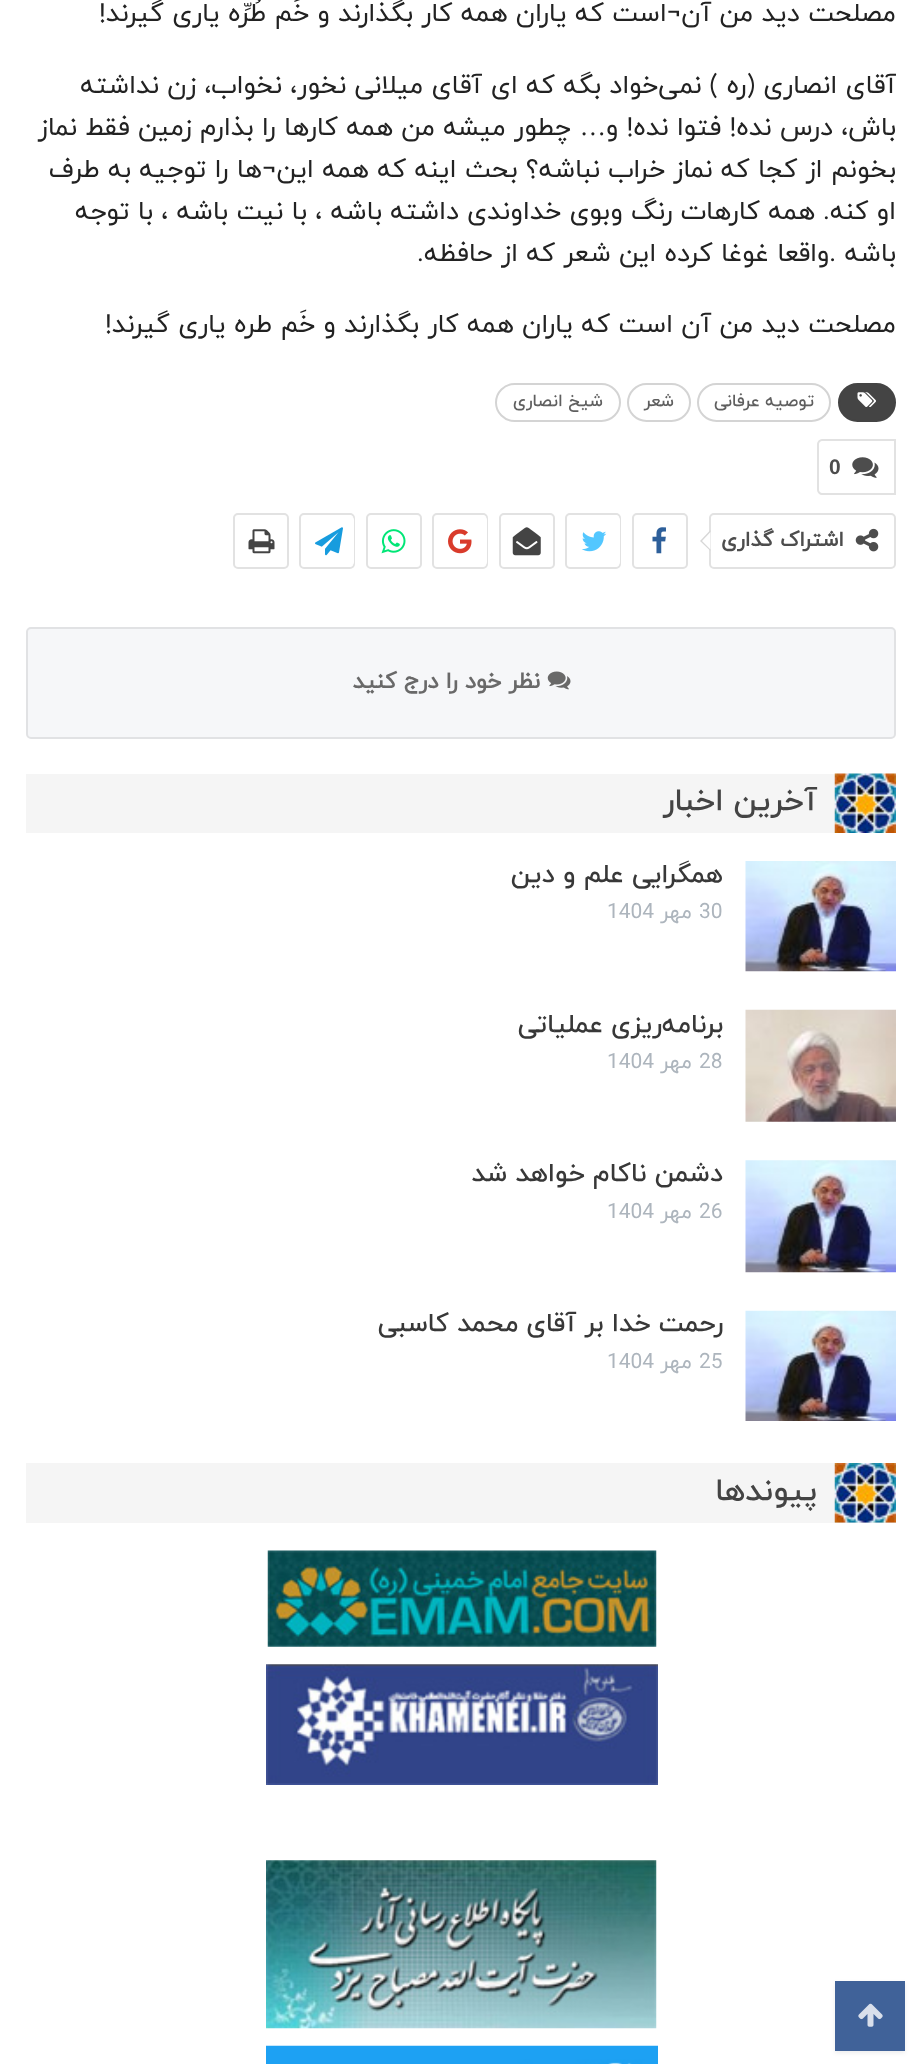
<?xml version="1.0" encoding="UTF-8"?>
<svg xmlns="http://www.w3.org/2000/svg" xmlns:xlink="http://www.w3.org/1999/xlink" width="922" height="2064">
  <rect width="100%" height="100%" fill="#ffffff" />
  <rect x="839" y="384" width="56" height="37" rx="18.5" fill="#444444" stroke="#444444" stroke-width="2" />
  <image x="857" y="392" width="19" height="15" xlink:href="image1.png" />
  <rect x="698" y="384" width="132" height="37" rx="18.5" fill="none" stroke="#d4d4d4" stroke-width="2" />
  <rect x="628" y="384" width="62" height="37" rx="18.5" fill="none" stroke="#d4d4d4" stroke-width="2" />
  <rect x="496" y="384" width="124" height="37" rx="18.5" fill="none" stroke="#d4d4d4" stroke-width="2" />
  <path d="M 822 440 h 73 v 54 h -73 c -2 0 -4 -2 -4 -4 v -46 c 0 -2 2 -4 4 -4 z" fill="none" stroke="#e2e2e2" stroke-width="2" />
  <image x="852" y="457" width="27" height="21" xlink:href="image2.png" />
  <rect x="710" y="514" width="185" height="54" rx="4" fill="none" stroke="#e2e2e2" stroke-width="2" />
  <image x="855" y="528" width="24" height="24" xlink:href="image3.png" />
  <path d="M 710.5 530 v 21 l -10.5 -10 z" fill="#d7d7d7" />
  <path d="M 710.5 532 v 17.5 l -8.5 -8.5 z" fill="#ffffff" />
  <rect x="633" y="514" width="54" height="54" rx="4" fill="none" stroke="#e2e2e2" stroke-width="2" />
  <image x="652" y="527" width="14" height="27" xlink:href="image4.png" />
  <rect x="566" y="514" width="54" height="54" rx="4" fill="none" stroke="#e2e2e2" stroke-width="2" />
  <rect x="567" y="515" width="53" height="52" rx="5" fill="#ffffff" />
  <image x="581" y="531" width="26" height="21" xlink:href="image5.png" />
  <rect x="500" y="514" width="54" height="54" rx="4" fill="none" stroke="#e2e2e2" stroke-width="2" />
  <image x="512" y="527" width="29" height="29" xlink:href="image6.png" />
  <rect x="433" y="514" width="54" height="54" rx="4" fill="none" stroke="#e2e2e2" stroke-width="2" />
  <rect x="434" y="515" width="53" height="52" rx="5" fill="#ffffff" />
  <image x="448" y="529" width="24" height="25" xlink:href="image7.png" />
  <rect x="367" y="514" width="54" height="54" rx="4" fill="none" stroke="#e2e2e2" stroke-width="2" />
  <image x="381" y="529" width="25" height="25" xlink:href="image8.png" />
  <rect x="300" y="514" width="54" height="54" rx="4" fill="none" stroke="#e2e2e2" stroke-width="2" />
  <rect x="301" y="515" width="53" height="52" rx="5" fill="#ffffff" />
  <image x="315" y="527" width="28" height="29" xlink:href="image9.png" />
  <rect x="234" y="514" width="54" height="54" rx="4" fill="none" stroke="#e2e2e2" stroke-width="2" />
  <image x="248" y="529" width="27" height="25" xlink:href="image10.png" />
  <rect x="27" y="628" width="868" height="110" rx="4" fill="#f6f7f9" stroke="#e1e2e4" stroke-width="2" />
  <image x="547" y="671" width="24" height="19" xlink:href="image11.png" />
  <rect x="26" y="774" width="809" height="59" fill="#f5f5f5" />
  <image x="834" y="773" width="62" height="60" xlink:href="image12.png" />
  <image x="745" y="861" width="151" height="111" xlink:href="image13.png" />
  <image x="745" y="1009" width="151" height="113" xlink:href="image14.png" />
  <image x="745" y="1160" width="151" height="113" xlink:href="image15.png" />
  <image x="745" y="1310" width="151" height="111" xlink:href="image16.png" />
  <rect x="26" y="1463" width="809" height="60" fill="#f5f5f5" />
  <rect x="835" y="1522" width="61" height="1" fill="#e1e1e1" />
  <image x="834" y="1463" width="62" height="60" xlink:href="image17.png" />
  <image x="267" y="1550" width="390" height="97" xlink:href="image18.png" />
  <image x="266" y="1664" width="392" height="121" xlink:href="image19.png" />
  <image x="266" y="1860" width="391" height="169" xlink:href="image20.png" />
  <image x="266" y="2045" width="392" height="19" xlink:href="image21.png" />
  <rect x="835" y="1983" width="70" height="70" fill="#333333" fill-opacity="0.09" filter="blur(2px)" />
  <rect x="835" y="1981" width="70" height="70" fill="#406299" />
  <image x="858" y="2003" width="25" height="24" xlink:href="image22.png" />
  <text x="896" y="21" style="font-family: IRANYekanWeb; font-size: 26.25px; direction: rtl; fill: #222222">مصلحت دید من آن¬است که یاران همه کار</text>
  <text x="413" y="21" style="font-family: IRANYekanWeb; font-size: 26.25px; direction: rtl; fill: #222222">بگذارند و خَم طُرِّه یاری گیرند!</text>
  <text x="896" y="93" style="font-family: IRANYekanWeb; font-size: 26.25px; direction: rtl; fill: #222222">آقای انصاری (ره ) نمی‌خواد بگه که ای</text>
  <text x="482" y="93" style="font-family: IRANYekanWeb; font-size: 26.25px; direction: rtl; fill: #222222">آقای میلانی نخور، نخواب، زن نداشته</text>
  <text x="896" y="135" style="font-family: IRANYekanWeb; font-size: 26.25px; direction: rtl; fill: #222222">باش، درس نده! فتوا نده! و</text>
  <text x="606" y="135" style="font-family: Liberation Serif; font-size: 26.25px; direction: rtl; fill: #222222">…</text>
  <text x="571" y="135" style="font-family: IRANYekanWeb; font-size: 26.25px; direction: rtl; fill: #222222">چطور میشه من همه کارها را بذارم زمین فقط نماز</text>
  <text x="896" y="177" style="font-family: IRANYekanWeb; font-size: 26.25px; direction: rtl; fill: #222222">بخونم از کجا که نماز خراب نباشه؟ بحث اینه که همه این¬ها را توجیه به طرف</text>
  <text x="896" y="219" style="font-family: IRANYekanWeb; font-size: 26.25px; direction: rtl; fill: #222222">او کنه.</text>
  <text x="815" y="219" style="font-family: IRANYekanWeb; font-size: 26.25px; direction: rtl; fill: #222222">همه کارهات رنگ وبوی خداوندی داشته باشه ، با نیت باشه ، با توجه</text>
  <text x="896" y="261" style="font-family: IRANYekanWeb; font-size: 26.25px; direction: rtl; fill: #222222">باشه .واقعا غوغا کرده این شعر که از حافظه.</text>
  <text x="896" y="332" style="font-family: IRANYekanWeb; font-size: 26.25px; direction: rtl; fill: #222222">مصلحت دید من آن است که یاران همه کار</text>
  <text x="419" y="332" style="font-family: IRANYekanWeb; font-size: 26.25px; direction: rtl; fill: #222222">بگذارند و خَم طره یاری گیرند!</text>
  <text x="814" y="406" style="font-family: IRANYekanWeb; font-size: 17.5px; font-weight: 500; direction: rtl; fill: #5f5f5f">توصیه عرفانی</text>
  <text x="674" y="406" style="font-family: IRANYekanWeb; font-size: 17.5px; font-weight: 500; direction: rtl; fill: #5f5f5f">شعر</text>
  <text x="603" y="406" style="font-family: IRANYekanWeb; font-size: 17.5px; font-weight: 500; direction: rtl; fill: #5f5f5f">شیخ انصاری</text>
  <text x="829" y="474" style="font-family: Liberation Sans; font-size: 21px; font-weight: bold; fill: #4d4d4d">0</text>
  <text x="844" y="546" style="font-family: IRANYekanWeb; font-size: 21px; font-weight: bold; direction: rtl; fill: #4d4d4d">اشتراک گذاری</text>
  <text x="540" y="688" style="font-family: IRANYekanWeb; font-size: 22.75px; font-weight: bold; direction: rtl; fill: #696969">نظر خود را درج کنید</text>
  <text x="817" y="810" style="font-family: IRANYekanWeb; font-size: 31.5px; font-weight: 500; direction: rtl; fill: #444444">آخرین اخبار</text>
  <text x="723" y="882" style="font-family: IRANYekanWeb; font-size: 26.25px; font-weight: 500; direction: rtl; fill: #383838">همگرایی علم و دین</text>
  <text x="699" y="918" style="font-family: IRANYekanWeb; font-size: 21px; fill: #adb5bd">30</text>
  <text x="692" y="918" style="font-family: IRANYekanWeb; font-size: 21px; direction: rtl; fill: #adb5bd">مهر</text>
  <text x="607" y="918" style="font-family: IRANYekanWeb; font-size: 21px; fill: #adb5bd">1404</text>
  <text x="723" y="1032" style="font-family: IRANYekanWeb; font-size: 26.25px; font-weight: 500; direction: rtl; fill: #383838">برنامه‌ریزی عملیاتی</text>
  <text x="699" y="1068" style="font-family: IRANYekanWeb; font-size: 21px; fill: #adb5bd">28</text>
  <text x="692" y="1068" style="font-family: IRANYekanWeb; font-size: 21px; direction: rtl; fill: #adb5bd">مهر</text>
  <text x="607" y="1068" style="font-family: IRANYekanWeb; font-size: 21px; fill: #adb5bd">1404</text>
  <text x="723" y="1181" style="font-family: IRANYekanWeb; font-size: 26.25px; font-weight: 500; direction: rtl; fill: #383838">دشمن ناکام خواهد شد</text>
  <text x="699" y="1218" style="font-family: IRANYekanWeb; font-size: 21px; fill: #adb5bd">26</text>
  <text x="692" y="1218" style="font-family: IRANYekanWeb; font-size: 21px; direction: rtl; fill: #adb5bd">مهر</text>
  <text x="607" y="1218" style="font-family: IRANYekanWeb; font-size: 21px; fill: #adb5bd">1404</text>
  <text x="723" y="1331" style="font-family: IRANYekanWeb; font-size: 26.25px; font-weight: 500; direction: rtl; fill: #383838">رحمت خدا بر آقای محمد کاسبی</text>
  <text x="699" y="1368" style="font-family: IRANYekanWeb; font-size: 21px; fill: #adb5bd">25</text>
  <text x="692" y="1368" style="font-family: IRANYekanWeb; font-size: 21px; direction: rtl; fill: #adb5bd">مهر</text>
  <text x="607" y="1368" style="font-family: IRANYekanWeb; font-size: 21px; fill: #adb5bd">1404</text>
  <text x="817" y="1500" style="font-family: IRANYekanWeb; font-size: 31.5px; font-weight: 500; direction: rtl; fill: #444444">پیوندها</text>
</svg>
